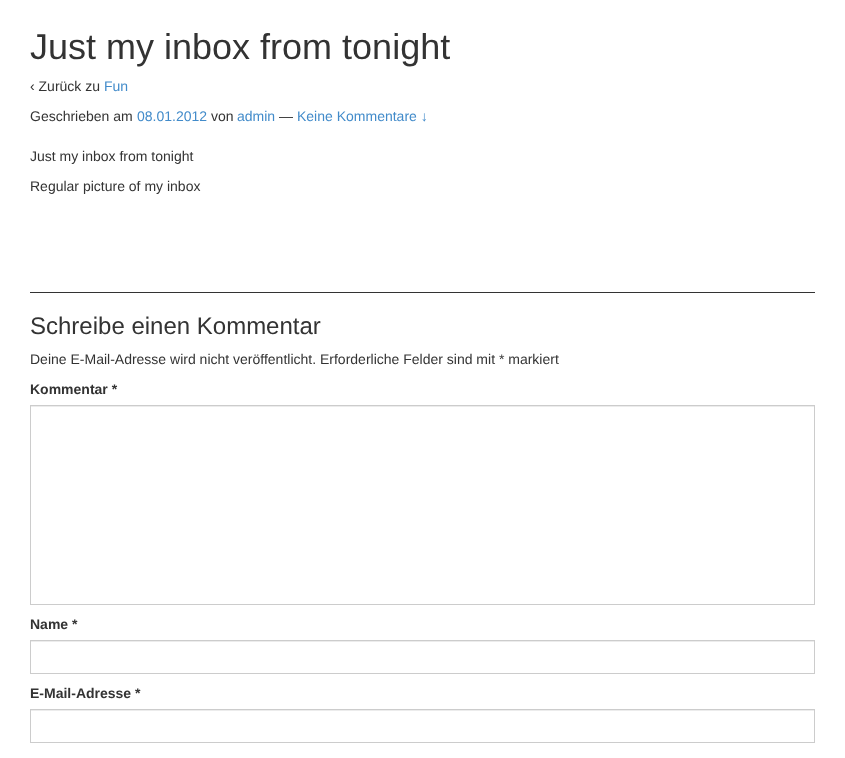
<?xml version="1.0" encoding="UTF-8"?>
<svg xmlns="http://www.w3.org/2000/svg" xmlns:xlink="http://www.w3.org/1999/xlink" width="845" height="758">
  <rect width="100%" height="100%" fill="#ffffff" />
  <rect x="30" y="292" width="785" height="1" fill="#333333" />
  <rect x="31" y="406" width="783" height="1" fill="#ececec" />
  <rect x="30.5" y="405.5" width="784" height="199" fill="none" stroke="#cccccc" />
  <rect x="31" y="641" width="783" height="1" fill="#ececec" />
  <rect x="30.5" y="640.5" width="784" height="33" fill="none" stroke="#cccccc" />
  <rect x="31" y="710" width="783" height="1" fill="#ececec" />
  <rect x="30.5" y="709.5" width="784" height="33" fill="none" stroke="#cccccc" />
  <text x="30" y="59" style="font-family: Liberation Sans; font-size: 36px; fill: #333333">Just my inbox from tonight</text>
  <text x="30" y="91" style="font-family: Liberation Sans; font-size: 14px; fill: #333333">‹ Zurück zu</text>
  <text x="104" y="91" style="font-family: Liberation Sans; font-size: 14px; fill: #428bca">Fun</text>
  <text x="30" y="121" style="font-family: Liberation Sans; font-size: 14px; fill: #333333">Geschrieben am</text>
  <text x="137" y="121" style="font-family: Liberation Sans; font-size: 14px; fill: #428bca">08.01.2012</text>
  <text x="211" y="121" style="font-family: Liberation Sans; font-size: 14px; fill: #333333">von</text>
  <text x="237" y="121" style="font-family: Liberation Sans; font-size: 14px; fill: #428bca">admin</text>
  <text x="279" y="121" style="font-family: Liberation Sans; font-size: 14px; fill: #333333">—</text>
  <text x="297" y="121" style="font-family: Liberation Sans; font-size: 14px; fill: #428bca">Keine Kommentare ↓</text>
  <text x="30" y="161" style="font-family: Liberation Sans; font-size: 14px; fill: #333333">Just my inbox from tonight</text>
  <text x="30" y="191" style="font-family: Liberation Sans; font-size: 14px; fill: #333333">Regular picture of my inbox</text>
  <text x="30" y="334" style="font-family: Liberation Sans; font-size: 24px; fill: #333333">Schreibe einen Kommentar</text>
  <text x="30" y="364" style="font-family: Liberation Sans; font-size: 14px; fill: #333333">Deine E-Mail-Adresse wird nicht veröffentlicht. Erforderliche Felder sind mit * markiert</text>
  <text x="30" y="394" style="font-family: Liberation Sans; font-size: 14px; font-weight: bold; fill: #333333">Kommentar *</text>
  <text x="30" y="629" style="font-family: Liberation Sans; font-size: 14px; font-weight: bold; fill: #333333">Name *</text>
  <text x="30" y="698" style="font-family: Liberation Sans; font-size: 14px; font-weight: bold; fill: #333333">E-Mail-Adresse *</text>
</svg>
